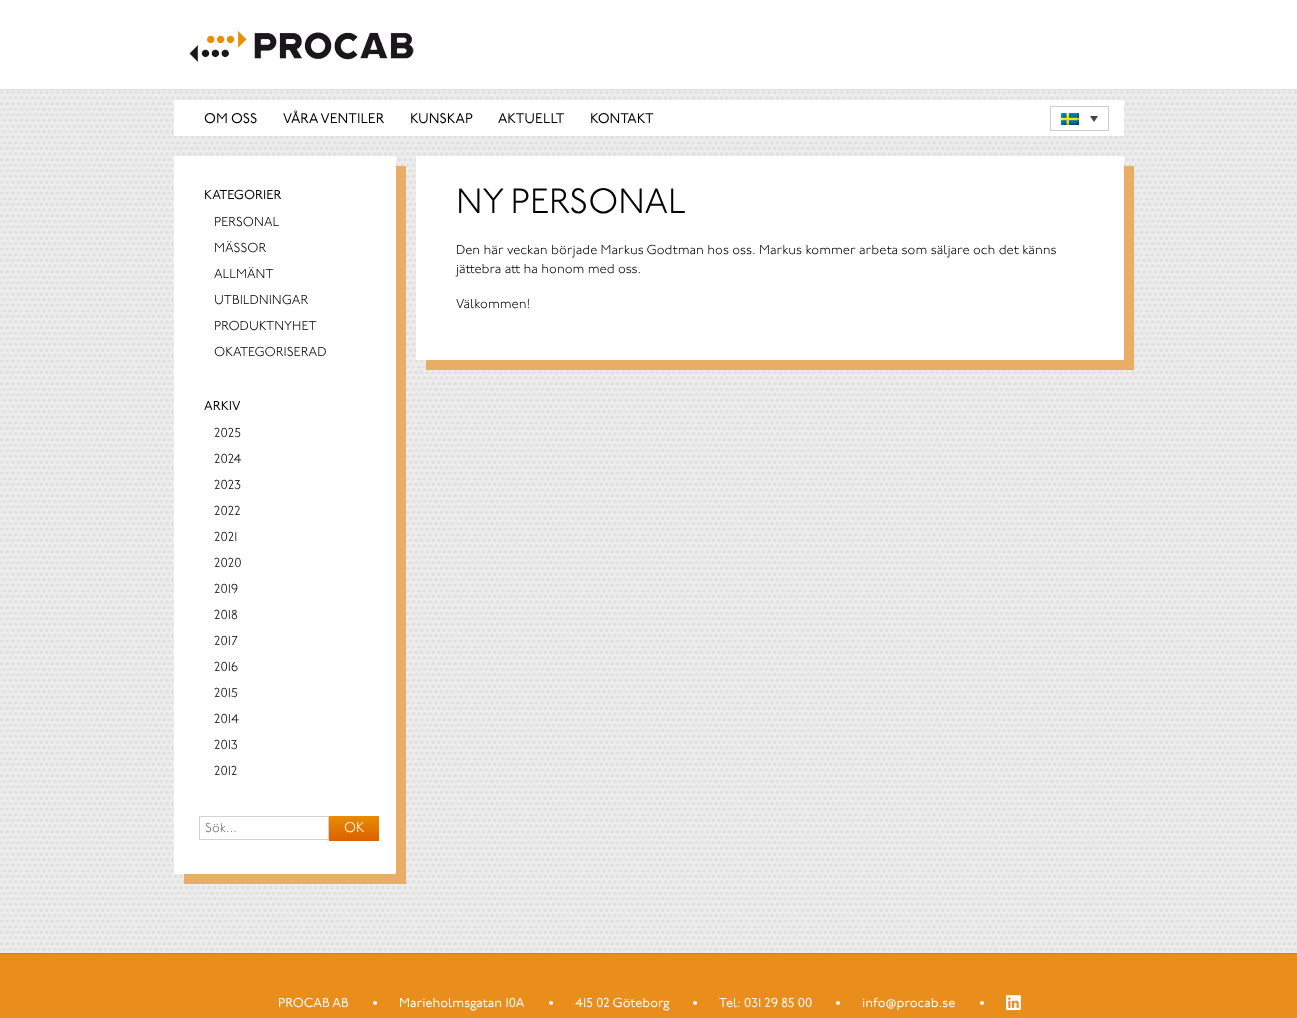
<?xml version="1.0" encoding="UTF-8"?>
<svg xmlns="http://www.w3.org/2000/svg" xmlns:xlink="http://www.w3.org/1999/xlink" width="1297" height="1018">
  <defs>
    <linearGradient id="g1" gradientUnits="userSpaceOnUse" x1="354" y1="816" x2="354" y2="841"><stop offset="0" stop-color="#e98d01" /><stop offset="1" stop-color="#dc6000" /></linearGradient>
  </defs>
  <rect width="100%" height="100%" fill="#ffffff" />
  <image x="0" y="90" width="1297" height="863" xlink:href="image1.png" />
  <rect y="89" width="1297" height="1" fill="#dddddd" />
  <image x="189" y="30" width="225" height="32" xlink:href="image2.png" />
  <rect x="174" y="100" width="950" height="36" fill="#ffffff" />
  <rect x="1050.5" y="106.5" width="58" height="24" fill="none" stroke="#cdcdcd" />
  <image x="1061" y="113" width="18" height="12" xlink:href="image3.png" />
  <path d="M 1090 116 h 8 l -4 6 z" fill="#444444" />
  <rect x="184" y="166" width="222" height="718" fill="#e9ae66" />
  <rect x="174" y="156" width="222" height="718" fill="#ffffff" />
  <rect x="199.5" y="816.5" width="129" height="23" fill="none" stroke="#d2d2d2" />
  <rect x="329" y="816" width="50" height="25" fill="url(#g1)" />
  <rect x="426" y="166" width="708" height="204" fill="#e9ae66" />
  <rect x="416" y="156" width="708" height="204" fill="#ffffff" />
  <rect y="954" width="1297" height="64" fill="#e98d1c" />
  <rect y="953" width="1297" height="1" fill="#d27f19" />
  <circle cx="375" cy="1003" r="2" fill="#ffffff" />
  <circle cx="551" cy="1003" r="2" fill="#ffffff" />
  <circle cx="695" cy="1003" r="2" fill="#ffffff" />
  <circle cx="838" cy="1003" r="2" fill="#ffffff" />
  <circle cx="982" cy="1003" r="2" fill="#ffffff" />
  <image x="1006" y="995" width="15" height="16" xlink:href="image4.png" />
  <text x="204" y="123" style="font-family: 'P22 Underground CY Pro'; font-size: 14px; fill: #000000">OM OSS</text>
  <text x="283" y="123" style="font-family: 'P22 Underground CY Pro'; font-size: 14px; fill: #000000">VÅRA VENTILER</text>
  <text x="410" y="123" style="font-family: 'P22 Underground CY Pro'; font-size: 14px; fill: #000000">KUNSKAP</text>
  <text x="498" y="123" style="font-family: 'P22 Underground CY Pro'; font-size: 14px; fill: #000000">AKTUELLT</text>
  <text x="590" y="123" style="font-family: 'P22 Underground CY Pro'; font-size: 14px; fill: #000000">KONTAKT</text>
  <text x="204" y="199" style="font-family: 'P22 Underground CY Pro'; font-size: 13px; fill: #000000">KATEGORIER</text>
  <text x="214" y="226" style="font-family: 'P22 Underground'; font-size: 13px; font-weight: 300; fill: #000000">PERSONAL</text>
  <text x="214" y="252" style="font-family: 'P22 Underground'; font-size: 13px; font-weight: 300; fill: #000000">MÄSSOR</text>
  <text x="214" y="278" style="font-family: 'P22 Underground'; font-size: 13px; font-weight: 300; fill: #000000">ALLMÄNT</text>
  <text x="214" y="304" style="font-family: 'P22 Underground'; font-size: 13px; font-weight: 300; fill: #000000">UTBILDNINGAR</text>
  <text x="214" y="330" style="font-family: 'P22 Underground'; font-size: 13px; font-weight: 300; fill: #000000">PRODUKTNYHET</text>
  <text x="214" y="356" style="font-family: 'P22 Underground'; font-size: 13px; font-weight: 300; fill: #000000">OKATEGORISERAD</text>
  <text x="204" y="410" style="font-family: 'P22 Underground CY Pro'; font-size: 13px; fill: #000000">ARKIV</text>
  <text x="214" y="437" style="font-family: 'P22 Underground'; font-size: 13px; font-weight: 300; fill: #000000">2025</text>
  <text x="214" y="463" style="font-family: 'P22 Underground'; font-size: 13px; font-weight: 300; fill: #000000">2024</text>
  <text x="214" y="489" style="font-family: 'P22 Underground'; font-size: 13px; font-weight: 300; fill: #000000">2023</text>
  <text x="214" y="515" style="font-family: 'P22 Underground'; font-size: 13px; font-weight: 300; fill: #000000">2022</text>
  <text x="214" y="541" style="font-family: 'P22 Underground'; font-size: 13px; font-weight: 300; fill: #000000">2021</text>
  <text x="214" y="567" style="font-family: 'P22 Underground'; font-size: 13px; font-weight: 300; fill: #000000">2020</text>
  <text x="214" y="593" style="font-family: 'P22 Underground'; font-size: 13px; font-weight: 300; fill: #000000">2019</text>
  <text x="214" y="619" style="font-family: 'P22 Underground'; font-size: 13px; font-weight: 300; fill: #000000">2018</text>
  <text x="214" y="645" style="font-family: 'P22 Underground'; font-size: 13px; font-weight: 300; fill: #000000">2017</text>
  <text x="214" y="671" style="font-family: 'P22 Underground'; font-size: 13px; font-weight: 300; fill: #000000">2016</text>
  <text x="214" y="697" style="font-family: 'P22 Underground'; font-size: 13px; font-weight: 300; fill: #000000">2015</text>
  <text x="214" y="723" style="font-family: 'P22 Underground'; font-size: 13px; font-weight: 300; fill: #000000">2014</text>
  <text x="214" y="749" style="font-family: 'P22 Underground'; font-size: 13px; font-weight: 300; fill: #000000">2013</text>
  <text x="214" y="775" style="font-family: 'P22 Underground'; font-size: 13px; font-weight: 300; fill: #000000">2012</text>
  <text x="205" y="832" style="font-family: 'P22 Underground'; font-size: 13px; font-weight: 300; fill: #757575">Sök...</text>
  <text x="344" y="832" style="font-family: 'P22 Underground'; font-size: 14px; font-weight: 300; fill: #ffffff">OK</text>
  <text x="456" y="213" style="font-family: 'P22 Underground'; font-size: 35px; font-weight: 300; fill: #000000">NY PERSONAL</text>
  <text x="456" y="254" style="font-family: 'P22 Underground'; font-size: 13px; font-weight: 300; fill: #000000">Den här veckan började Markus Godtman hos oss. Markus kommer arbeta som säljare och det känns</text>
  <text x="456" y="273" style="font-family: 'P22 Underground'; font-size: 13px; font-weight: 300; fill: #000000">jättebra att ha honom med oss.</text>
  <text x="456" y="308" style="font-family: 'P22 Underground'; font-size: 13px; font-weight: 300; fill: #000000">Välkommen!</text>
  <text x="278" y="1007" style="font-family: 'P22 Underground CY Pro'; font-size: 13px; fill: #ffffff">PROCAB AB</text>
  <text x="399" y="1007" style="font-family: 'P22 Underground CY Pro'; font-size: 13px; fill: #ffffff">Marieholmsgatan 10A</text>
  <text x="575" y="1007" style="font-family: 'P22 Underground CY Pro'; font-size: 13px; fill: #ffffff">415 02 Göteborg</text>
  <text x="719" y="1007" style="font-family: 'P22 Underground CY Pro'; font-size: 13px; fill: #ffffff">Tel: 031 29 85 00</text>
  <text x="862" y="1007" style="font-family: 'P22 Underground CY Pro'; font-size: 13px; fill: #ffffff">info@procab.se</text>
</svg>
